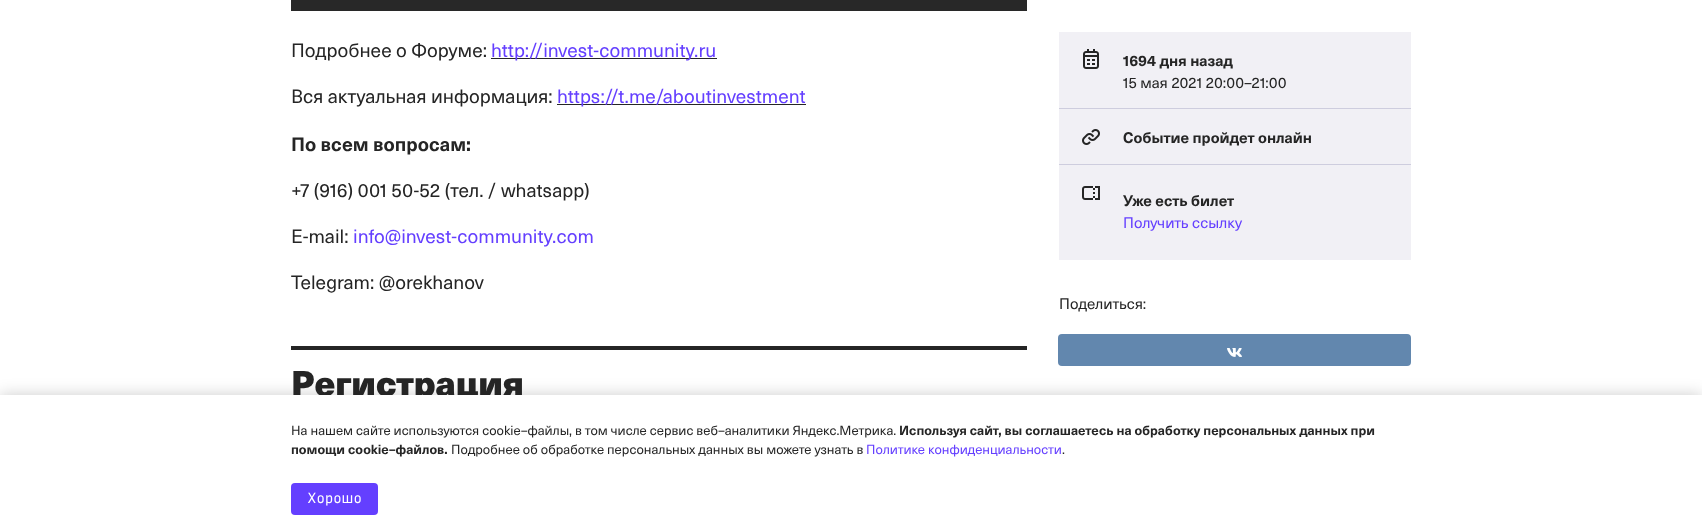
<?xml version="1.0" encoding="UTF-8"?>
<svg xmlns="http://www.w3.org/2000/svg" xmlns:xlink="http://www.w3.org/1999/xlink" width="1702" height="531">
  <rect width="100%" height="100%" fill="#ffffff" />
  <rect x="291" width="736" height="11" fill="#282828" />
  <rect x="491" y="58" width="226" height="1" fill="#252525" />
  <rect x="557" y="104" width="249" height="1" fill="#252525" />
  <rect x="291" y="346" width="736" height="4" fill="#252525" />
  <rect x="1059" y="32" width="352" height="76" fill="#f1f0f5" />
  <image x="1083" y="49" width="16" height="20" xlink:href="image1.png" />
  <rect x="1059" y="109" width="352" height="55" fill="#f1f0f5" />
  <rect x="1059" y="108" width="352" height="1" fill="#cecdde" />
  <image x="1082" y="129" width="18" height="16" xlink:href="image2.png" />
  <rect x="1059" y="165" width="352" height="95" fill="#f1f0f5" />
  <rect x="1059" y="164" width="352" height="1" fill="#cecdde" />
  <image x="1082" y="186" width="18" height="14" xlink:href="image3.png" />
  <rect x="1058" y="334" width="353" height="32" rx="4" fill="#6287ae" />
  <image x="1227" y="348" width="15" height="9" xlink:href="image4.png" />
  <rect y="395" width="1702" height="136" fill="#000000" fill-opacity="0.2" filter="blur(8px)" />
  <text x="291" y="57" style="font-family: 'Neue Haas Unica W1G'; font-size: 19px; fill: #252525">Подробнее о Форуме:</text>
  <text x="491" y="57" style="font-family: 'Neue Haas Unica W1G'; font-size: 19px; fill: #643fff">http://invest-community.ru</text>
  <text x="291" y="103" style="font-family: 'Neue Haas Unica W1G'; font-size: 19px; fill: #252525">Вся актуальная информация:</text>
  <text x="557" y="103" style="font-family: 'Neue Haas Unica W1G'; font-size: 19px; fill: #643fff">https://t.me/aboutinvestment</text>
  <text x="291" y="151" style="font-family: 'Neue Haas Unica W1G'; font-size: 19px; font-weight: bold; fill: #252525">По всем вопросам:</text>
  <text x="291" y="197" style="font-family: 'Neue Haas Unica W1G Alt'; font-size: 19px; fill: #252525">+7 (916) 001 50-52 (тел. / whatsapp)</text>
  <text x="291" y="243" style="font-family: 'Neue Haas Unica W1G'; font-size: 19px; fill: #252525">E-mail:</text>
  <text x="353" y="243" style="font-family: 'Neue Haas Unica W1G'; font-size: 19px; fill: #643fff">info@invest-community.com</text>
  <text x="291" y="289" style="font-family: 'Neue Haas Unica W1G'; font-size: 19px; fill: #252525">Telegram: @orekhanov</text>
  <text x="291" y="396" style="font-family: 'Neue Haas Unica W1G'; font-size: 35px; font-weight: 900; fill: #252525">Регистрация</text>
  <text x="1123" y="66" style="font-family: 'Neue Haas Unica W1G Alt'; font-size: 15px; font-weight: bold; fill: #252525">1694 дня назад</text>
  <text x="1123" y="88" style="font-family: 'Neue Haas Unica W1G Alt'; font-size: 15px; fill: #252525">15 мая 2021 20:00–21:00</text>
  <text x="1123" y="143" style="font-family: 'Neue Haas Unica W1G'; font-size: 15px; font-weight: bold; fill: #252525">Событие пройдет онлайн</text>
  <text x="1123" y="206" style="font-family: 'Neue Haas Unica W1G'; font-size: 15px; font-weight: bold; fill: #252525">Уже есть билет</text>
  <text x="1123" y="228" style="font-family: 'Neue Haas Unica W1G'; font-size: 15px; fill: #643fff">Получить ссылку</text>
  <text x="1059" y="309" style="font-family: 'Neue Haas Unica W1G'; font-size: 15px; fill: #252525">Поделиться:</text>
  <rect y="395" width="1702" height="136" fill="#ffffff" />
  <text x="291" y="435" style="font-family: 'Neue Haas Unica W1G'; font-size: 13px; fill: #252525">На нашем сайте используются cookie–файлы, в том числе сервис веб–аналитики Яндекс.Метрика.</text>
  <text x="899" y="435" style="font-family: 'Neue Haas Unica W1G'; font-size: 13px; font-weight: bold; fill: #252525">Используя сайт, вы соглашаетесь на обработку персональных данных при</text>
  <text x="291" y="454" style="font-family: 'Neue Haas Unica W1G'; font-size: 13px; font-weight: bold; fill: #252525">помощи cookie–файлов.</text>
  <text x="451" y="454" style="font-family: 'Neue Haas Unica W1G'; font-size: 13px; fill: #252525">Подробнее об обработке персональных данных вы можете узнать в</text>
  <text x="866" y="454" style="font-family: 'Neue Haas Unica W1G'; font-size: 13px; fill: #643fff">Политике конфиденциальности</text>
  <text x="1062" y="454" style="font-family: 'Neue Haas Unica W1G'; font-size: 13px; fill: #252525">.</text>
  <rect x="291" y="483" width="87" height="32" rx="4" fill="#643fff" />
  <text x="307" y="503" style="font-family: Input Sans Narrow; font-size: 14px; fill: #ffffff">Хорошо</text>
</svg>
